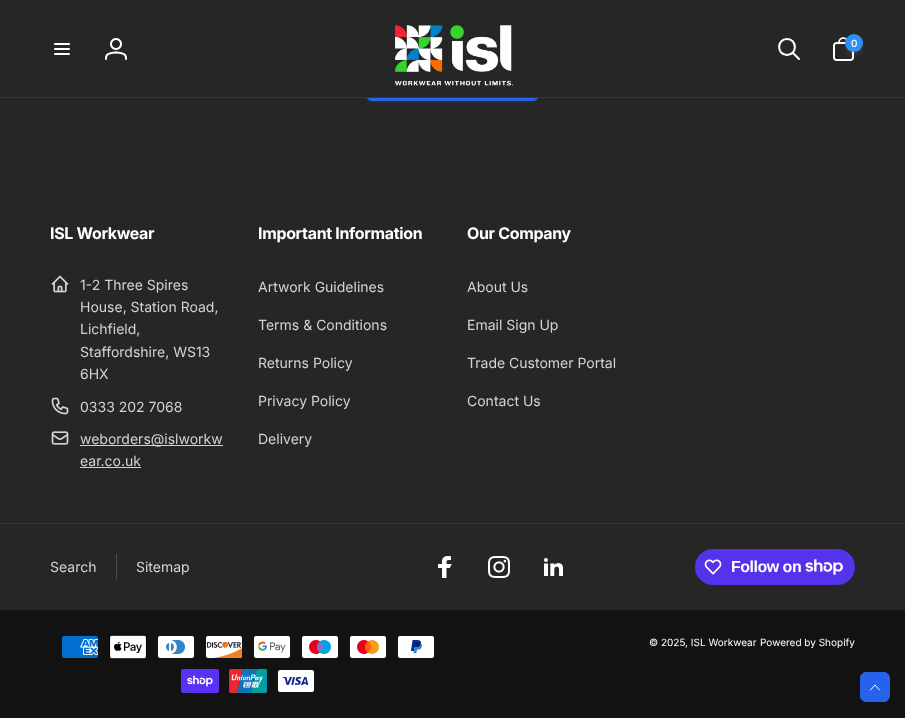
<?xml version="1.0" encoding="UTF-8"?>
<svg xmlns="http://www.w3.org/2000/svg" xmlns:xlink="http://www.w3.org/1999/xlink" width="905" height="718">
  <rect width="100%" height="100%" fill="#262626" />
  <rect x="366" y="61" width="173" height="41" rx="6" fill="#ffffff" fill-opacity="0.05" filter="blur(1px)" />
  <rect x="366.5" y="60.5" width="172" height="40" rx="5.5" fill="#2563eb" stroke="#2563eb" />
  <rect x="365" y="60" width="175" height="37" fill="#262626" />
  <rect y="97" width="905" height="1" fill="#373737" />
  <image x="54" y="43" width="16" height="12" xlink:href="image1.png" />
  <image x="105" y="38" width="22" height="22" xlink:href="image2.png" />
  <image x="395" y="25" width="118" height="61" xlink:href="image3.png" />
  <path d="M 799 59 l -6.5 -6.5 m -5.5 2.5 c 10.5 0 10.5 -16 0 -16 c -10.5 0 -10.5 16 0 16 z" fill="none" stroke="#ffffff" stroke-width="2" stroke-linecap="round" stroke-linejoin="round" />
  <image x="833" y="37" width="21" height="24" xlink:href="image4.png" />
  <rect x="846" y="37" width="16" height="16" rx="8" fill="#ffffff" fill-opacity="0.06" filter="blur(2px)" />
  <rect x="846" y="39" width="16" height="16" rx="8" fill="#ffffff" fill-opacity="0.1" filter="blur(3px)" />
  <circle cx="854" cy="43" r="9" fill="#2c91f4" />
  <image x="51" y="275" width="18" height="18" xlink:href="image5.png" />
  <image x="51" y="397" width="18" height="18" xlink:href="image6.png" />
  <image x="51" y="431" width="18" height="14" xlink:href="image7.png" />
  <rect x="80" y="445" width="143" height="1" fill="#d4d4d4" />
  <rect x="80" y="467" width="61" height="1" fill="#d4d4d4" />
  <rect y="523" width="905" height="1" fill="#373737" />
  <rect x="116" y="554" width="1" height="26" fill="#4d4d4d" />
  <image x="438" y="556" width="14" height="22" xlink:href="image8.png" />
  <image x="488" y="556" width="22" height="22" xlink:href="image9.png" />
  <image x="544" y="558" width="19" height="18" xlink:href="image10.png" />
  <rect x="695" y="549" width="160" height="36" rx="18" fill="#5433eb" />
  <image x="704" y="559" width="18" height="16" xlink:href="image11.png" />
  <image x="805" y="559" width="38" height="16" xlink:href="image12.png" />
  <rect y="610" width="905" height="108" fill="#121212" />
  <image x="62" y="636" width="36" height="22" xlink:href="image13.png" />
  <image x="109" y="635" width="38" height="24" xlink:href="image14.png" />
  <image x="158" y="636" width="36" height="22" xlink:href="image15.png" />
  <image x="206" y="636" width="36" height="22" xlink:href="image16.png" />
  <image x="254" y="636" width="36" height="22" xlink:href="image17.png" />
  <image x="302" y="636" width="36" height="22" xlink:href="image18.png" />
  <image x="350" y="636" width="36" height="22" xlink:href="image19.png" />
  <image x="398" y="636" width="36" height="22" xlink:href="image20.png" />
  <image x="181" y="669" width="38" height="24" xlink:href="image21.png" />
  <image x="229" y="669" width="38" height="24" xlink:href="image22.png" />
  <image x="278" y="670" width="36" height="22" xlink:href="image23.png" />
  <rect x="860.5" y="672.5" width="29" height="29" rx="5.5" fill="#2563eb" stroke="#2563eb" />
  <path d="M 870.5 690 l 4.5 -5 l 4.5 5" fill="none" stroke="#ffffff" stroke-linecap="round" stroke-linejoin="round" />
  <text x="851" y="47" style="font-family: Inter; font-size: 10px; font-weight: 500; fill: #ffffff">0</text>
  <text x="50" y="239" style="font-family: Inter; font-size: 16px; font-weight: bold; letter-spacing: -0.3px; fill: #ffffff">ISL Workwear</text>
  <text x="80" y="290" style="font-family: Inter; font-size: 14px; fill: #d4d4d4">1-2 Three Spires</text>
  <text x="80" y="312" style="font-family: Inter; font-size: 14px; fill: #d4d4d4">House, Station Road,</text>
  <text x="80" y="334" style="font-family: Inter; font-size: 14px; fill: #d4d4d4">Lichfield,</text>
  <text x="80" y="357" style="font-family: Inter; font-size: 14px; fill: #d4d4d4">Staffordshire, WS13</text>
  <text x="80" y="379" style="font-family: Inter; font-size: 14px; fill: #d4d4d4">6HX</text>
  <text x="80" y="412" style="font-family: Inter; font-size: 14px; fill: #d4d4d4">0333 202 7068</text>
  <text x="80" y="444" style="font-family: Inter; font-size: 14px; fill: #d4d4d4">weborders@islworkw</text>
  <text x="80" y="466" style="font-family: Inter; font-size: 14px; fill: #d4d4d4">ear.co.uk</text>
  <text x="258" y="239" style="font-family: Inter; font-size: 16px; font-weight: bold; letter-spacing: -0.3px; fill: #ffffff">Important Information</text>
  <text x="258" y="292" style="font-family: Inter; font-size: 14px; fill: #d4d4d4">Artwork Guidelines</text>
  <text x="258" y="330" style="font-family: Inter; font-size: 14px; fill: #d4d4d4">Terms &amp; Conditions</text>
  <text x="258" y="368" style="font-family: Inter; font-size: 14px; fill: #d4d4d4">Returns Policy</text>
  <text x="258" y="406" style="font-family: Inter; font-size: 14px; fill: #d4d4d4">Privacy Policy</text>
  <text x="258" y="444" style="font-family: Inter; font-size: 14px; fill: #d4d4d4">Delivery</text>
  <text x="467" y="239" style="font-family: Inter; font-size: 16px; font-weight: bold; letter-spacing: -0.3px; fill: #ffffff">Our Company</text>
  <text x="467" y="292" style="font-family: Inter; font-size: 14px; fill: #d4d4d4">About Us</text>
  <text x="467" y="330" style="font-family: Inter; font-size: 14px; fill: #d4d4d4">Email Sign Up</text>
  <text x="467" y="368" style="font-family: Inter; font-size: 14px; fill: #d4d4d4">Trade Customer Portal</text>
  <text x="467" y="406" style="font-family: Inter; font-size: 14px; fill: #d4d4d4">Contact Us</text>
  <text x="50" y="572" style="font-family: Inter; font-size: 14px; fill: #d4d4d4">Search</text>
  <text x="136" y="572" style="font-family: Inter; font-size: 14px; fill: #d4d4d4">Sitemap</text>
  <text x="731" y="572" style="font-family: Liberation Sans; font-size: 16px; font-weight: bold; letter-spacing: -0.5px; fill: #ffffff">Follow on</text>
  <text x="649" y="646" style="font-family: Inter; font-size: 10px; fill: #ffffff">© 2025, ISL Workwear</text>
  <text x="760" y="646" style="font-family: Inter; font-size: 10px; fill: #ffffff">Powered by Shopify</text>
</svg>
